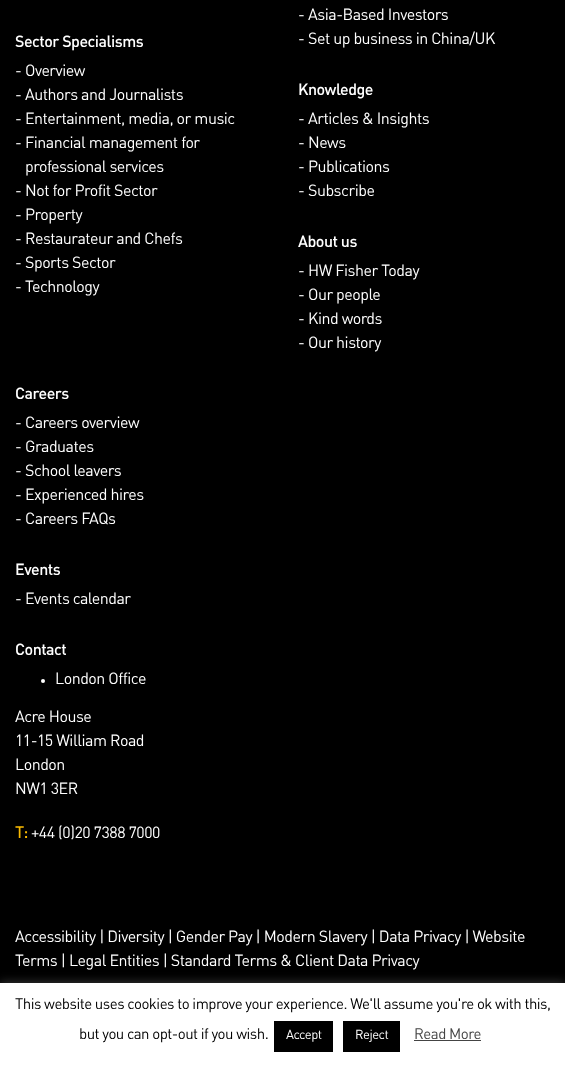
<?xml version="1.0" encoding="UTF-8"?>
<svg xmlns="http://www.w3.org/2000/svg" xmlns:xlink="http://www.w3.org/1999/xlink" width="565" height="1069">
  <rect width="100%" height="100%" fill="#000000" />
  <circle cx="43" cy="681" r="2" fill="#ffffff" />
  <rect y="982" width="565" height="86" fill="#acabab" fill-opacity="0.3" filter="blur(5px)" />
  <rect y="983" width="565" height="86" fill="#ffffff" />
  <rect x="274" y="1021" width="59" height="31" fill="#000000" />
  <rect x="343" y="1021" width="57" height="31" fill="#000000" />
  <rect x="414" y="1040" width="67" height="1" fill="#444444" />
  <text x="15" y="47" style="font-family: DIN; font-size: 16px; font-weight: 500; letter-spacing: -0.5px; fill: #ffffff">Sector Specialisms</text>
  <text x="15" y="76" style="font-family: DIN; font-size: 16px; letter-spacing: -0.5px; fill: #ffffff">-</text>
  <text x="25" y="76" style="font-family: DIN; font-size: 16px; letter-spacing: -0.5px; fill: #ffffff">Overview</text>
  <text x="15" y="100" style="font-family: DIN; font-size: 16px; letter-spacing: -0.5px; fill: #ffffff">-</text>
  <text x="25" y="100" style="font-family: DIN; font-size: 16px; letter-spacing: -0.5px; fill: #ffffff">Authors and Journalists</text>
  <text x="15" y="124" style="font-family: DIN; font-size: 16px; letter-spacing: -0.5px; fill: #ffffff">-</text>
  <text x="25" y="124" style="font-family: DIN; font-size: 16px; letter-spacing: -0.5px; fill: #ffffff">Entertainment, media, or music</text>
  <text x="15" y="148" style="font-family: DIN; font-size: 16px; letter-spacing: -0.5px; fill: #ffffff">-</text>
  <text x="25" y="148" style="font-family: DIN; font-size: 16px; letter-spacing: -0.5px; fill: #ffffff">Financial management for</text>
  <text x="25" y="172" style="font-family: DIN; font-size: 16px; letter-spacing: -0.5px; fill: #ffffff">professional services</text>
  <text x="15" y="196" style="font-family: DIN; font-size: 16px; letter-spacing: -0.5px; fill: #ffffff">-</text>
  <text x="25" y="196" style="font-family: DIN; font-size: 16px; letter-spacing: -0.5px; fill: #ffffff">Not for Profit Sector</text>
  <text x="15" y="220" style="font-family: DIN; font-size: 16px; letter-spacing: -0.5px; fill: #ffffff">-</text>
  <text x="25" y="220" style="font-family: DIN; font-size: 16px; letter-spacing: -0.5px; fill: #ffffff">Property</text>
  <text x="15" y="244" style="font-family: DIN; font-size: 16px; letter-spacing: -0.5px; fill: #ffffff">-</text>
  <text x="25" y="244" style="font-family: DIN; font-size: 16px; letter-spacing: -0.5px; fill: #ffffff">Restaurateur and Chefs</text>
  <text x="15" y="268" style="font-family: DIN; font-size: 16px; letter-spacing: -0.5px; fill: #ffffff">-</text>
  <text x="25" y="268" style="font-family: DIN; font-size: 16px; letter-spacing: -0.5px; fill: #ffffff">Sports Sector</text>
  <text x="15" y="292" style="font-family: DIN; font-size: 16px; letter-spacing: -0.5px; fill: #ffffff">-</text>
  <text x="25" y="292" style="font-family: DIN; font-size: 16px; letter-spacing: -0.5px; fill: #ffffff">Technology</text>
  <text x="298" y="20" style="font-family: DIN; font-size: 16px; letter-spacing: -0.5px; fill: #ffffff">-</text>
  <text x="308" y="20" style="font-family: DIN; font-size: 16px; letter-spacing: -0.5px; fill: #ffffff">Asia-Based Investors</text>
  <text x="298" y="44" style="font-family: DIN; font-size: 16px; letter-spacing: -0.5px; fill: #ffffff">-</text>
  <text x="308" y="44" style="font-family: DIN; font-size: 16px; letter-spacing: -0.5px; fill: #ffffff">Set up business in China/UK</text>
  <text x="298" y="95" style="font-family: DIN; font-size: 16px; font-weight: 500; letter-spacing: -0.5px; fill: #ffffff">Knowledge</text>
  <text x="298" y="124" style="font-family: DIN; font-size: 16px; letter-spacing: -0.5px; fill: #ffffff">-</text>
  <text x="308" y="124" style="font-family: DIN; font-size: 16px; letter-spacing: -0.5px; fill: #ffffff">Articles &amp; Insights</text>
  <text x="298" y="148" style="font-family: DIN; font-size: 16px; letter-spacing: -0.5px; fill: #ffffff">-</text>
  <text x="308" y="148" style="font-family: DIN; font-size: 16px; letter-spacing: -0.5px; fill: #ffffff">News</text>
  <text x="298" y="172" style="font-family: DIN; font-size: 16px; letter-spacing: -0.5px; fill: #ffffff">-</text>
  <text x="308" y="172" style="font-family: DIN; font-size: 16px; letter-spacing: -0.5px; fill: #ffffff">Publications</text>
  <text x="298" y="196" style="font-family: DIN; font-size: 16px; letter-spacing: -0.5px; fill: #ffffff">-</text>
  <text x="308" y="196" style="font-family: DIN; font-size: 16px; letter-spacing: -0.5px; fill: #ffffff">Subscribe</text>
  <text x="298" y="247" style="font-family: DIN; font-size: 16px; font-weight: 500; letter-spacing: -0.5px; fill: #ffffff">About us</text>
  <text x="298" y="276" style="font-family: DIN; font-size: 16px; letter-spacing: -0.5px; fill: #ffffff">-</text>
  <text x="308" y="276" style="font-family: DIN; font-size: 16px; letter-spacing: -0.5px; fill: #ffffff">HW Fisher Today</text>
  <text x="298" y="300" style="font-family: DIN; font-size: 16px; letter-spacing: -0.5px; fill: #ffffff">-</text>
  <text x="308" y="300" style="font-family: DIN; font-size: 16px; letter-spacing: -0.5px; fill: #ffffff">Our people</text>
  <text x="298" y="324" style="font-family: DIN; font-size: 16px; letter-spacing: -0.5px; fill: #ffffff">-</text>
  <text x="308" y="324" style="font-family: DIN; font-size: 16px; letter-spacing: -0.5px; fill: #ffffff">Kind words</text>
  <text x="298" y="348" style="font-family: DIN; font-size: 16px; letter-spacing: -0.5px; fill: #ffffff">-</text>
  <text x="308" y="348" style="font-family: DIN; font-size: 16px; letter-spacing: -0.5px; fill: #ffffff">Our history</text>
  <text x="15" y="399" style="font-family: DIN; font-size: 16px; font-weight: 500; letter-spacing: -0.5px; fill: #ffffff">Careers</text>
  <text x="15" y="428" style="font-family: DIN; font-size: 16px; letter-spacing: -0.5px; fill: #ffffff">-</text>
  <text x="25" y="428" style="font-family: DIN; font-size: 16px; letter-spacing: -0.5px; fill: #ffffff">Careers overview</text>
  <text x="15" y="452" style="font-family: DIN; font-size: 16px; letter-spacing: -0.5px; fill: #ffffff">-</text>
  <text x="25" y="452" style="font-family: DIN; font-size: 16px; letter-spacing: -0.5px; fill: #ffffff">Graduates</text>
  <text x="15" y="476" style="font-family: DIN; font-size: 16px; letter-spacing: -0.5px; fill: #ffffff">-</text>
  <text x="25" y="476" style="font-family: DIN; font-size: 16px; letter-spacing: -0.5px; fill: #ffffff">School leavers</text>
  <text x="15" y="500" style="font-family: DIN; font-size: 16px; letter-spacing: -0.5px; fill: #ffffff">-</text>
  <text x="25" y="500" style="font-family: DIN; font-size: 16px; letter-spacing: -0.5px; fill: #ffffff">Experienced hires</text>
  <text x="15" y="524" style="font-family: DIN; font-size: 16px; letter-spacing: -0.5px; fill: #ffffff">-</text>
  <text x="25" y="524" style="font-family: DIN; font-size: 16px; letter-spacing: -0.5px; fill: #ffffff">Careers FAQs</text>
  <text x="15" y="575" style="font-family: DIN; font-size: 16px; font-weight: 500; letter-spacing: -0.5px; fill: #ffffff">Events</text>
  <text x="15" y="604" style="font-family: DIN; font-size: 16px; letter-spacing: -0.5px; fill: #ffffff">-</text>
  <text x="25" y="604" style="font-family: DIN; font-size: 16px; letter-spacing: -0.5px; fill: #ffffff">Events calendar</text>
  <text x="15" y="655" style="font-family: DIN; font-size: 16px; font-weight: 500; letter-spacing: -0.5px; fill: #ffffff">Contact</text>
  <text x="55" y="684" style="font-family: DIN; font-size: 16px; letter-spacing: -0.5px; fill: #ffffff">London Office</text>
  <text x="15" y="722" style="font-family: DIN; font-size: 16px; letter-spacing: -0.5px; fill: #ffffff">Acre House</text>
  <text x="15" y="746" style="font-family: DIN; font-size: 16px; letter-spacing: -0.5px; fill: #ffffff">11-15 William Road</text>
  <text x="15" y="770" style="font-family: DIN; font-size: 16px; letter-spacing: -0.5px; fill: #ffffff">London</text>
  <text x="15" y="794" style="font-family: DIN; font-size: 16px; letter-spacing: -0.5px; fill: #ffffff">NW1 3ER</text>
  <text x="15" y="838" style="font-family: DIN; font-size: 16px; font-weight: bold; letter-spacing: -0.5px; fill: #f8b900">T:</text>
  <text x="31" y="838" style="font-family: DIN; font-size: 16px; letter-spacing: -0.5px; fill: #ffffff">+44 (0)20 7388 7000</text>
  <text x="15" y="942" style="font-family: DIN; font-size: 16px; letter-spacing: -0.5px; fill: #ffffff">Accessibility | Diversity | Gender Pay | Modern Slavery | Data Privacy | Website</text>
  <text x="15" y="966" style="font-family: DIN; font-size: 16px; letter-spacing: -0.5px; fill: #ffffff">Terms | Legal Entities | Standard Terms &amp; Client Data Privacy</text>
  <text x="15" y="1009" style="font-family: DIN; font-size: 15px; letter-spacing: -0.5px; fill: #000000">This website uses cookies to improve your experience. We'll assume you're ok with this,</text>
  <text x="79" y="1039" style="font-family: DIN; font-size: 15px; letter-spacing: -0.5px; fill: #000000">but you can opt-out if you wish.</text>
  <text x="286" y="1039" style="font-family: DIN; font-size: 13px; letter-spacing: -0.5px; fill: #ffffff">Accept</text>
  <text x="355" y="1039" style="font-family: DIN; font-size: 13px; letter-spacing: -0.5px; fill: #ffffff">Reject</text>
  <text x="414" y="1039" style="font-family: DIN; font-size: 15px; letter-spacing: -0.5px; fill: #444444">Read More</text>
</svg>
